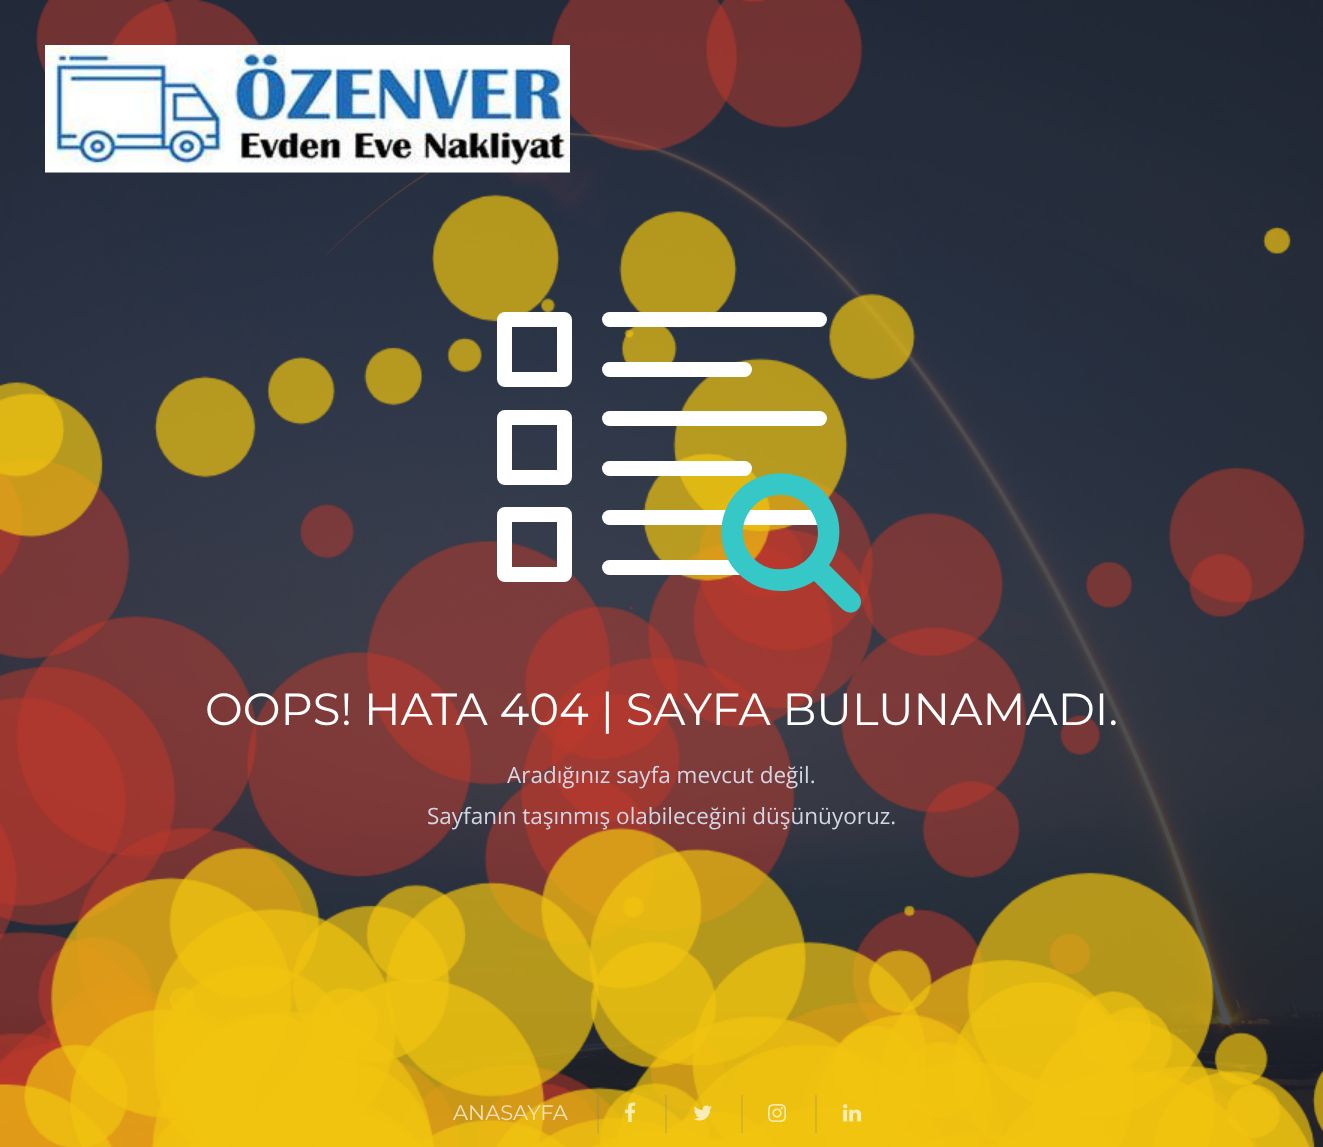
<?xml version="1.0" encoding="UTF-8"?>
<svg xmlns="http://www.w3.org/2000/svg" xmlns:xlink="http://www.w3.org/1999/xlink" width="1323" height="1147">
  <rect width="100%" height="100%" fill="#ffffff" />
  <image x="0" y="0" width="1323" height="1147" xlink:href="image1.png" />
  <image x="0" y="0" width="1306" height="1147" xlink:href="image2.png" />
  <image x="45" y="45" width="525" height="128" xlink:href="image3.png" />
  <image x="0" y="194" width="1323" height="953" xlink:href="image4.png" />
  <rect x="504.5" y="319.5" width="60" height="60" rx="0.5" fill="none" stroke="#ffffff" stroke-width="15" />
  <rect x="504.5" y="417.5" width="60" height="60" rx="0.5" fill="none" stroke="#ffffff" stroke-width="15" />
  <rect x="504.5" y="514.5" width="60" height="60" rx="0.5" fill="none" stroke="#ffffff" stroke-width="15" />
  <rect x="602" y="312" width="225" height="15" rx="7.5" fill="#ffffff" />
  <rect x="602" y="362" width="150" height="15" rx="7.5" fill="#ffffff" />
  <rect x="602" y="411" width="225" height="15" rx="7.5" fill="#ffffff" />
  <rect x="602" y="461" width="150" height="15" rx="7.5" fill="#ffffff" />
  <rect x="602" y="510" width="225" height="15" rx="7.5" fill="#ffffff" />
  <rect x="602" y="560" width="150" height="15" rx="7.5" fill="#ffffff" />
  <path d="M 807 559 c 25 -25 4 -67 -30 -64 c -9 1 -17 4 -23 11 c -25 25 -5 67 30 63 c 9 0 17 -4 23 -10 z m 54 43 c 0 3 -2 7 -5 9 c -10 6 -17 -6 -23 -11 l -19 -19 c -30 20 -71 9 -87 -23 c -6 -13 -7 -27 -4 -40 c 15 -58 96 -60 114 -3 c 5 17 2 36 -8 50 l 29 29 c 2 2 3 5 3 8 z" fill="#36c7c7" />
  <rect x="597" y="1095" width="2" height="38" fill="#757a86" fill-opacity="0.2" />
  <image x="625" y="1102" width="11" height="20" xlink:href="image5.png" />
  <rect x="665" y="1095" width="2" height="38" fill="#757a86" fill-opacity="0.2" />
  <image x="693" y="1105" width="19" height="16" xlink:href="image6.png" />
  <rect x="741" y="1095" width="2" height="38" fill="#757a86" fill-opacity="0.2" />
  <image x="768" y="1104" width="18" height="18" xlink:href="image7.png" />
  <rect x="815" y="1095" width="2" height="38" fill="#757a86" fill-opacity="0.2" />
  <image x="843" y="1104" width="18" height="18" xlink:href="image8.png" />
  <text x="205" y="725" style="font-family: Montserrat; font-size: 45px; font-weight: 100; fill: #ffffff">OOPS! HATA 404 | SAYFA BULUNAMADI.</text>
  <text x="507" y="783" style="font-family: Open Sans; font-size: 22.5px; fill: #d2d6e4">Aradığınız sayfa mevcut değil.</text>
  <text x="427" y="824" style="font-family: Open Sans; font-size: 22.5px; fill: #d2d6e4">Sayfanın taşınmış olabileceğini düşünüyoruz.</text>
  <text x="453" y="1120" style="font-family: Montserrat; font-size: 21px; font-weight: 100; fill: #f3e2b9">ANASAYFA</text>
</svg>
